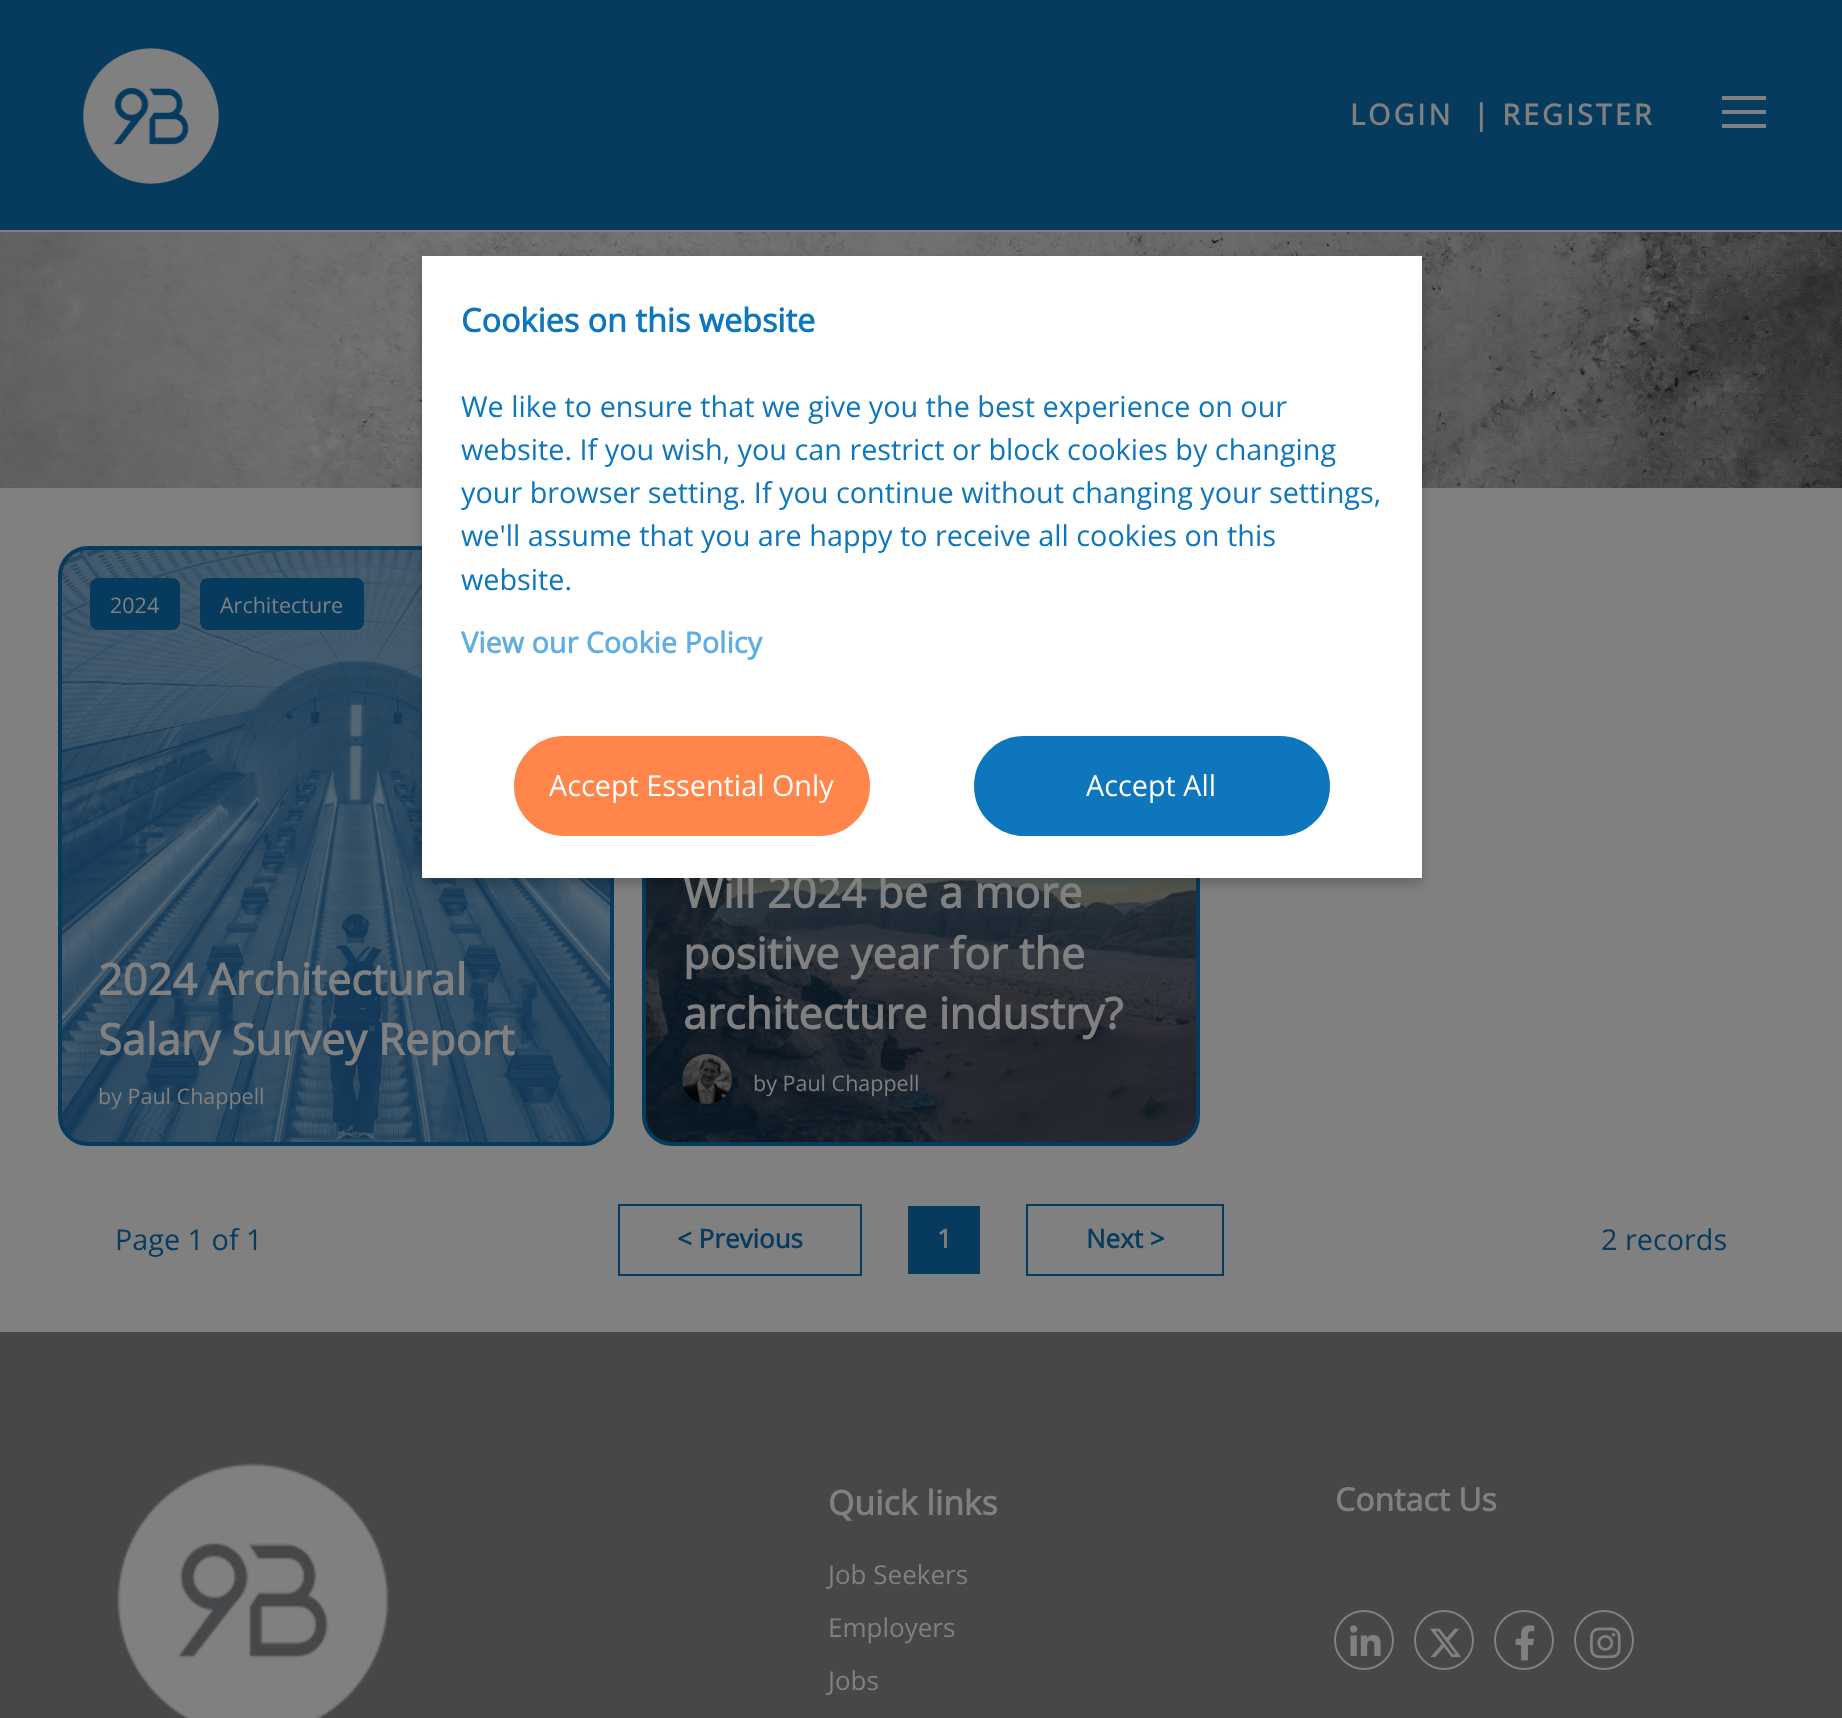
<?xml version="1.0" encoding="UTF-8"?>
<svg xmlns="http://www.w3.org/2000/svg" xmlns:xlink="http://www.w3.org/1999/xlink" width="1842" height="1718">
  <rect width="100%" height="100%" fill="#808080" />
  <rect width="1842" height="230" fill="#073b5e" />
  <image x="83" y="48" width="136" height="136" xlink:href="image1.png" />
  <rect x="1722" y="110" width="44" height="4" fill="#808080" />
  <rect x="1722" y="96" width="44" height="4" fill="#808080" />
  <rect x="1722" y="124" width="44" height="4" fill="#808080" />
  <image x="0" y="232" width="1842" height="256" xlink:href="image2.png" />
  <rect x="60" y="548" width="552" height="596" rx="28" fill="#073b5e" stroke="#073b5e" stroke-width="4" />
  <image x="62" y="550" width="548" height="592" xlink:href="image3.png" />
  <rect x="644" y="548" width="554" height="596" rx="28" fill="#073b5e" stroke="#073b5e" stroke-width="4" />
  <image x="646" y="878" width="550" height="264" xlink:href="image5.png" />
  <rect x="422" y="262" width="1000" height="622" fill="#000000" fill-opacity="0.2" filter="blur(6px)" />
  <path d="M 62 596 v 2 c 5 0 5 8 0 8 v 2 c 8 0 8 -12 0 -12 z" fill="#315771" />
  <rect x="90" y="578" width="90" height="52" rx="8" fill="#073b5e" />
  <rect x="200" y="578" width="164" height="52" rx="8" fill="#073b5e" />
  <image x="682" y="1054" width="50" height="50" xlink:href="image4.png" />
  <rect x="619" y="1205" width="242" height="70" fill="none" stroke="#073b5e" stroke-width="2" />
  <rect x="908" y="1206" width="72" height="68" fill="#073b5e" />
  <rect x="1027" y="1205" width="196" height="70" fill="none" stroke="#073b5e" stroke-width="2" />
  <rect y="1332" width="1842" height="386" fill="#464748" />
  <image x="117" y="1463" width="272" height="255" xlink:href="image6.png" />
  <circle cx="1364" cy="1640" r="29" fill="none" stroke="#808080" stroke-width="2" />
  <image x="1350" y="1625" width="31" height="31" xlink:href="image7.png" />
  <circle cx="1444" cy="1640" r="29" fill="none" stroke="#808080" stroke-width="2" />
  <image x="1430" y="1628" width="32" height="30" xlink:href="image8.png" />
  <circle cx="1524" cy="1640" r="29" fill="none" stroke="#808080" stroke-width="2" />
  <image x="1515" y="1625" width="20" height="36" xlink:href="image9.png" />
  <circle cx="1604" cy="1640" r="29" fill="none" stroke="#808080" stroke-width="2" />
  <image x="1590" y="1627" width="31" height="32" xlink:href="image10.png" />
  <text x="1350" y="125" style="font-family: Open Sans; font-size: 28.8px; font-weight: bold; letter-spacing: 3px; fill: #808080">LOGIN</text>
  <text x="1473" y="125" style="font-family: Open Sans; font-size: 28.8px; font-weight: bold; letter-spacing: 3px; fill: #808080">| REGISTER</text>
  <text x="110" y="613" style="font-family: Open Sans; font-size: 21.5px; fill: #808080">2024</text>
  <text x="220" y="613" style="font-family: Open Sans; font-size: 21.5px; fill: #808080">Architecture</text>
  <text x="98" y="995" style="font-family: Open Sans; font-size: 43.25px; font-weight: bold; fill: #808080">2024 Architectural</text>
  <text x="98" y="1055" style="font-family: Open Sans; font-size: 43.25px; font-weight: bold; fill: #808080">Salary Survey Report</text>
  <text x="98" y="1104" style="font-family: Open Sans; font-size: 21.5px; fill: #808080">by Paul Chappell</text>
  <text x="683" y="908" style="font-family: Open Sans; font-size: 43.25px; font-weight: bold; fill: #808080">Will 2024 be a more</text>
  <rect x="422" y="256" width="1000" height="622" fill="#ffffff" />
  <rect x="973" y="735" width="358" height="102" rx="51" fill="#0e76bc" stroke="#ffffff" stroke-width="2" />
  <text x="1086" y="796" style="font-family: Open Sans; font-size: 28.8px; fill: #ffffff">Accept All</text>
  <rect x="513" y="735" width="358" height="102" rx="51" fill="#ff854a" stroke="#ffffff" stroke-width="2" />
  <text x="549" y="796" style="font-family: Open Sans; font-size: 28.8px; fill: #ffffff">Accept Essential Only</text>
  <text x="461" y="653" style="font-family: Open Sans; font-size: 28.8px; font-weight: bold; fill: #62aee1">View our Cookie Policy</text>
  <text x="461" y="590" style="font-family: Open Sans; font-size: 28.8px; fill: #0e76bc">website.</text>
  <text x="461" y="546" style="font-family: Open Sans; font-size: 28.8px; fill: #0e76bc">we'll assume that you are happy to receive all cookies on this</text>
  <text x="461" y="503" style="font-family: Open Sans; font-size: 28.8px; fill: #0e76bc">your browser setting. If you continue without changing your settings,</text>
  <text x="461" y="460" style="font-family: Open Sans; font-size: 28.8px; fill: #0e76bc">website. If you wish, you can restrict or block cookies by changing</text>
  <text x="461" y="417" style="font-family: Open Sans; font-size: 28.8px; fill: #0e76bc">We like to ensure that we give you the best experience on our</text>
  <text x="461" y="332" style="font-family: Open Sans; font-size: 32.4px; font-weight: bold; fill: #0e76bc">Cookies on this website</text>
  <text x="683" y="969" style="font-family: Open Sans; font-size: 43.25px; font-weight: bold; fill: #808080">positive year for the</text>
  <text x="683" y="1029" style="font-family: Open Sans; font-size: 43.25px; font-weight: bold; fill: #808080">architecture industry?</text>
  <text x="753" y="1091" style="font-family: Open Sans; font-size: 21.5px; fill: #808080">by Paul Chappell</text>
  <text x="115" y="1250" style="font-family: Open Sans; font-size: 28.8px; fill: #073b5e">Page 1 of 1</text>
  <text x="677" y="1248" style="font-family: Open Sans; font-size: 26px; font-weight: bold; fill: #073b5e">&lt; Previous</text>
  <text x="937" y="1248" style="font-family: Open Sans; font-size: 26px; font-weight: bold; fill: #808080">1</text>
  <text x="1086" y="1248" style="font-family: Open Sans; font-size: 26px; font-weight: bold; fill: #073b5e">Next &gt;</text>
  <text x="1601" y="1250" style="font-family: Open Sans; font-size: 28.8px; fill: #073b5e">2 records</text>
  <text x="828" y="1515" style="font-family: Open Sans; font-size: 33.75px; font-weight: bold; fill: #808080">Quick links</text>
  <text x="828" y="1584" style="font-family: Open Sans; font-size: 26px; fill: #808080">Job Seekers</text>
  <text x="828" y="1637" style="font-family: Open Sans; font-size: 26px; fill: #808080">Employers</text>
  <text x="828" y="1690" style="font-family: Open Sans; font-size: 26px; fill: #808080">Jobs</text>
  <text x="1335" y="1511" style="font-family: Open Sans; font-size: 32px; font-weight: bold; fill: #808080">Contact Us</text>
</svg>
